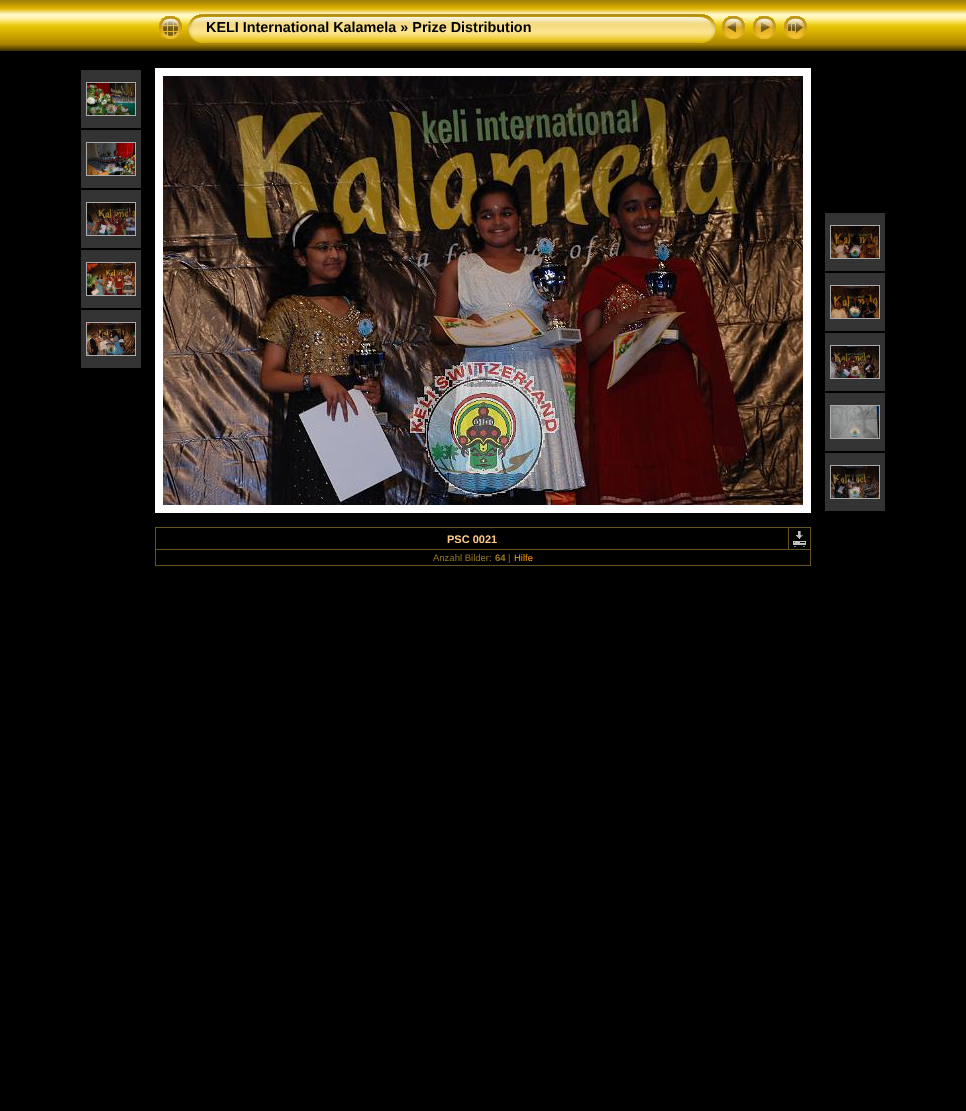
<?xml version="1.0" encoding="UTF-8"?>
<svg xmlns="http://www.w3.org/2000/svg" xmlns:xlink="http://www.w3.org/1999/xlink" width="966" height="1111">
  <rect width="100%" height="100%" fill="#000000" />
  <image x="0" y="0" width="966" height="51" xlink:href="image1.png" />
  <image x="158" y="16" width="24" height="23" xlink:href="image2.png" />
  <image x="188" y="14" width="18" height="29" xlink:href="image3.png" />
  <image x="206" y="14" width="492" height="29" xlink:href="image4.png" />
  <image x="698" y="14" width="18" height="29" xlink:href="image5.png" />
  <image x="721" y="16" width="24" height="23" xlink:href="image6.png" />
  <image x="752" y="16" width="24" height="23" xlink:href="image7.png" />
  <image x="783" y="16" width="24" height="23" xlink:href="image8.png" />
  <rect x="81" y="70" width="60" height="58" fill="#333333" />
  <rect x="86.5" y="82.5" width="49" height="33" fill="none" stroke="#aaaaaa" />
  <image x="87" y="83" width="48" height="32" xlink:href="image9.png" />
  <rect x="81" y="130" width="60" height="58" fill="#333333" />
  <rect x="86.5" y="142.5" width="49" height="33" fill="none" stroke="#aaaaaa" />
  <image x="87" y="143" width="48" height="32" xlink:href="image10.png" />
  <rect x="81" y="190" width="60" height="58" fill="#333333" />
  <rect x="86.5" y="202.5" width="49" height="33" fill="none" stroke="#aaaaaa" />
  <image x="87" y="203" width="48" height="32" xlink:href="image11.png" />
  <rect x="81" y="250" width="60" height="58" fill="#333333" />
  <rect x="86.5" y="262.5" width="49" height="33" fill="none" stroke="#aaaaaa" />
  <image x="87" y="263" width="48" height="32" xlink:href="image12.png" />
  <rect x="81" y="310" width="60" height="58" fill="#333333" />
  <rect x="86.5" y="322.5" width="49" height="33" fill="none" stroke="#aaaaaa" />
  <image x="87" y="323" width="48" height="32" xlink:href="image13.png" />
  <rect x="159" y="72" width="648" height="437" fill="none" stroke="#ffffff" stroke-width="8" />
  <image x="163" y="76" width="640" height="429" xlink:href="image14.png" />
  <rect x="825" y="213" width="60" height="58" fill="#333333" />
  <rect x="830.5" y="225.5" width="49" height="33" fill="none" stroke="#aaaaaa" />
  <image x="831" y="226" width="48" height="32" xlink:href="image15.png" />
  <rect x="825" y="273" width="60" height="58" fill="#333333" />
  <rect x="830.5" y="285.5" width="49" height="33" fill="none" stroke="#aaaaaa" />
  <image x="831" y="286" width="48" height="32" xlink:href="image16.png" />
  <rect x="825" y="333" width="60" height="58" fill="#333333" />
  <rect x="830.5" y="345.5" width="49" height="33" fill="none" stroke="#aaaaaa" />
  <image x="831" y="346" width="48" height="32" xlink:href="image17.png" />
  <rect x="825" y="393" width="60" height="58" fill="#333333" />
  <rect x="830.5" y="405.5" width="49" height="33" fill="none" stroke="#aaaaaa" />
  <image x="831" y="406" width="48" height="32" xlink:href="image18.png" />
  <rect x="825" y="453" width="60" height="58" fill="#333333" />
  <rect x="830.5" y="465.5" width="49" height="33" fill="none" stroke="#aaaaaa" />
  <image x="831" y="466" width="48" height="32" xlink:href="image19.png" />
  <rect x="155" y="527" width="656" height="1" fill="#665522" />
  <rect x="810" y="527" width="1" height="39" fill="#665522" />
  <rect x="155" y="565" width="656" height="1" fill="#665522" />
  <rect x="155" y="527" width="1" height="39" fill="#665522" />
  <rect x="155" y="549" width="656" height="1" fill="#665522" />
  <rect x="788" y="527" width="1" height="23" fill="#665522" />
  <image x="793" y="531" width="13" height="16" xlink:href="image20.png" />
  <text x="206" y="32" style="font-family: Liberation Sans; font-size: 14.4px; font-weight: bold; fill: #000000">KELI International Kalamela » Prize Distribution</text>
  <text x="447" y="543" style="font-family: Liberation Sans; font-size: 11px; font-weight: bold; fill: #ffcc88">PSC 0021</text>
  <text x="433" y="561" style="font-family: Liberation Sans; font-size: 9.5px; fill: #997722">Anzahl Bilder:</text>
  <text x="495" y="561" style="font-family: Liberation Sans; font-size: 9.5px; font-weight: bold; fill: #997722">64</text>
  <text x="508" y="561" style="font-family: Liberation Sans; font-size: 9.5px; fill: #997722">|</text>
  <text x="514" y="561" style="font-family: Liberation Sans; font-size: 9.5px; fill: #ff9900">Hilfe</text>
</svg>
